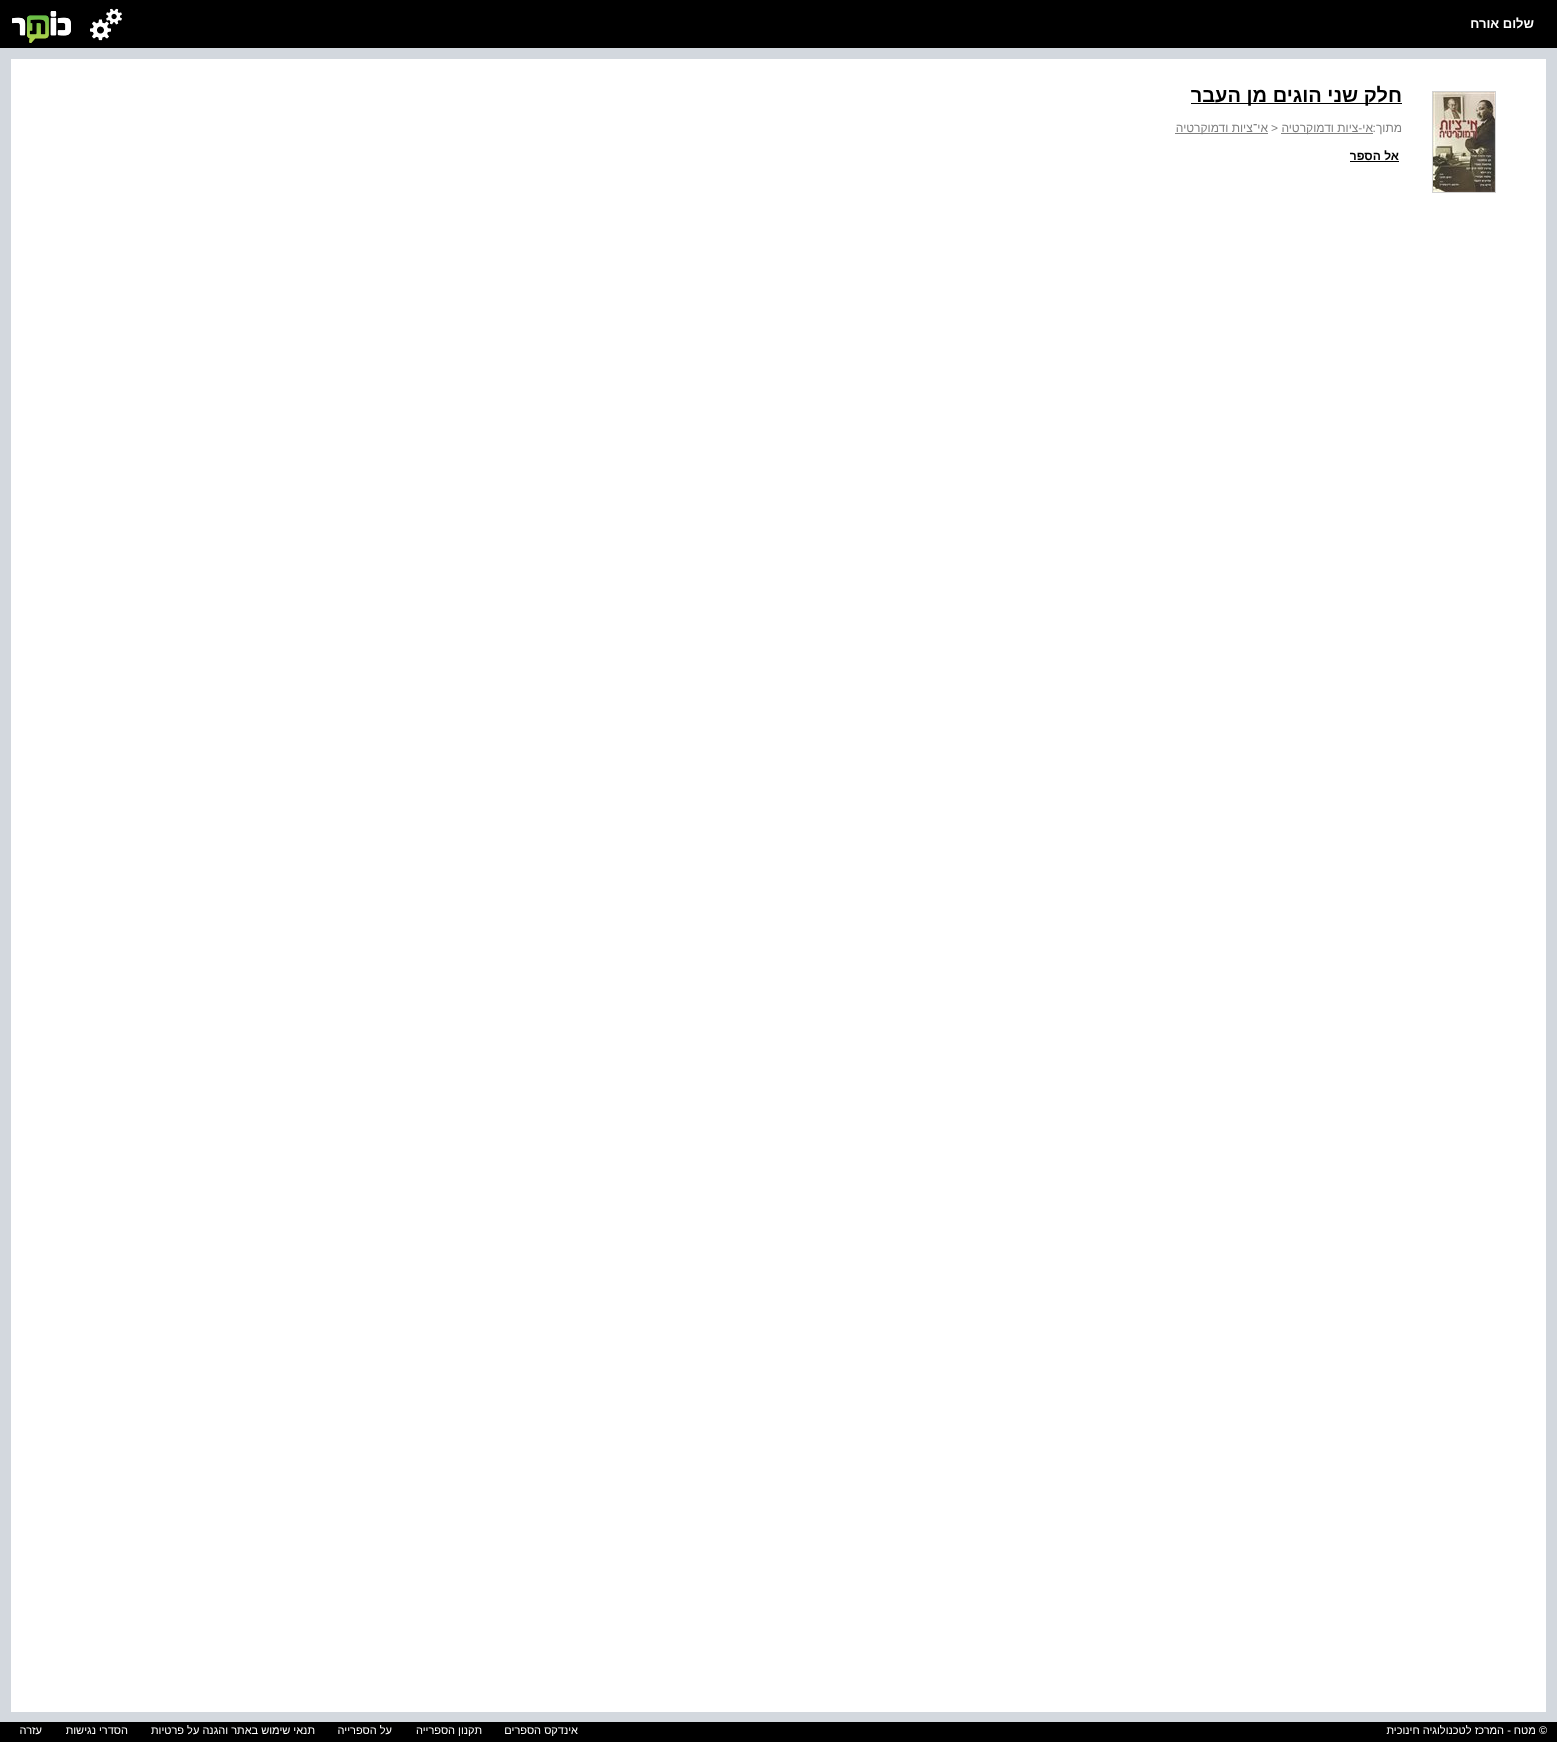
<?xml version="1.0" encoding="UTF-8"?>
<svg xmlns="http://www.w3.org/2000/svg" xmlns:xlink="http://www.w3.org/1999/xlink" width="1557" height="1742">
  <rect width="100%" height="100%" fill="#d3d8de" />
  <rect width="1557" height="48" fill="#000000" />
  <image x="90" y="8" width="32" height="33" xlink:href="image1.png" />
  <image x="12" y="11" width="59" height="32" xlink:href="image2.png" />
  <rect x="11" y="59" width="1535" height="1653" fill="#ffffff" />
  <rect x="1432.5" y="91.5" width="63" height="101" fill="none" stroke="#d1d1d1" />
  <image x="1433" y="92" width="62" height="100" xlink:href="image3.png" />
  <rect x="1191" y="103" width="211" height="1" fill="#000000" />
  <rect x="1281" y="133" width="92" height="1" fill="#808080" />
  <rect x="1175" y="133" width="93" height="1" fill="#808080" />
  <rect x="1350" y="161" width="49" height="1" fill="#000000" />
  <rect y="1722" width="1557" height="20" fill="#000000" />
  <text x="1534" y="28" style="font-family: Liberation Sans; font-size: 13px; font-weight: bold; direction: rtl; fill: #ffffff">שלום אורח</text>
  <text x="1402" y="102" style="font-family: Liberation Sans; font-size: 20px; font-weight: bold; direction: rtl; fill: #000000">חלק שני הוגים מן העבר</text>
  <text x="1402" y="132" style="font-family: Liberation Sans; font-size: 12px; direction: rtl; fill: #808080">מתוך:</text>
  <text x="1373" y="132" style="font-family: Liberation Sans; font-size: 12px; direction: rtl; fill: #808080">אי-ציות ודמוקרטיה</text>
  <text x="1271" y="132" style="font-family: Liberation Sans; font-size: 12px; fill: #808080">&gt;</text>
  <text x="1268" y="132" style="font-family: Liberation Sans; font-size: 12px; direction: rtl; fill: #808080">אי־ציות ודמוקרטיה</text>
  <text x="1399" y="160" style="font-family: Liberation Sans; font-size: 12px; font-weight: bold; direction: rtl; fill: #000000">אל הספר</text>
  <text x="1547" y="1734" style="font-family: Liberation Sans; font-size: 11px; direction: rtl; fill: #ffffff">© מטח - המרכז לטכנולוגיה חינוכית</text>
  <text x="578" y="1734" style="font-family: Liberation Sans; font-size: 11px; direction: rtl; fill: #ffffff">אינדקס הספרים</text>
  <text x="482" y="1734" style="font-family: Liberation Sans; font-size: 11px; direction: rtl; fill: #ffffff">תקנון הספרייה</text>
  <text x="392" y="1734" style="font-family: Liberation Sans; font-size: 11px; direction: rtl; fill: #ffffff">על הספרייה</text>
  <text x="315" y="1734" style="font-family: Liberation Sans; font-size: 11px; direction: rtl; fill: #ffffff">תנאי שימוש באתר והגנה על פרטיות</text>
  <text x="128" y="1734" style="font-family: Liberation Sans; font-size: 11px; direction: rtl; fill: #ffffff">הסדרי נגישות</text>
  <text x="42" y="1734" style="font-family: Liberation Sans; font-size: 11px; direction: rtl; fill: #ffffff">עזרה</text>
</svg>
